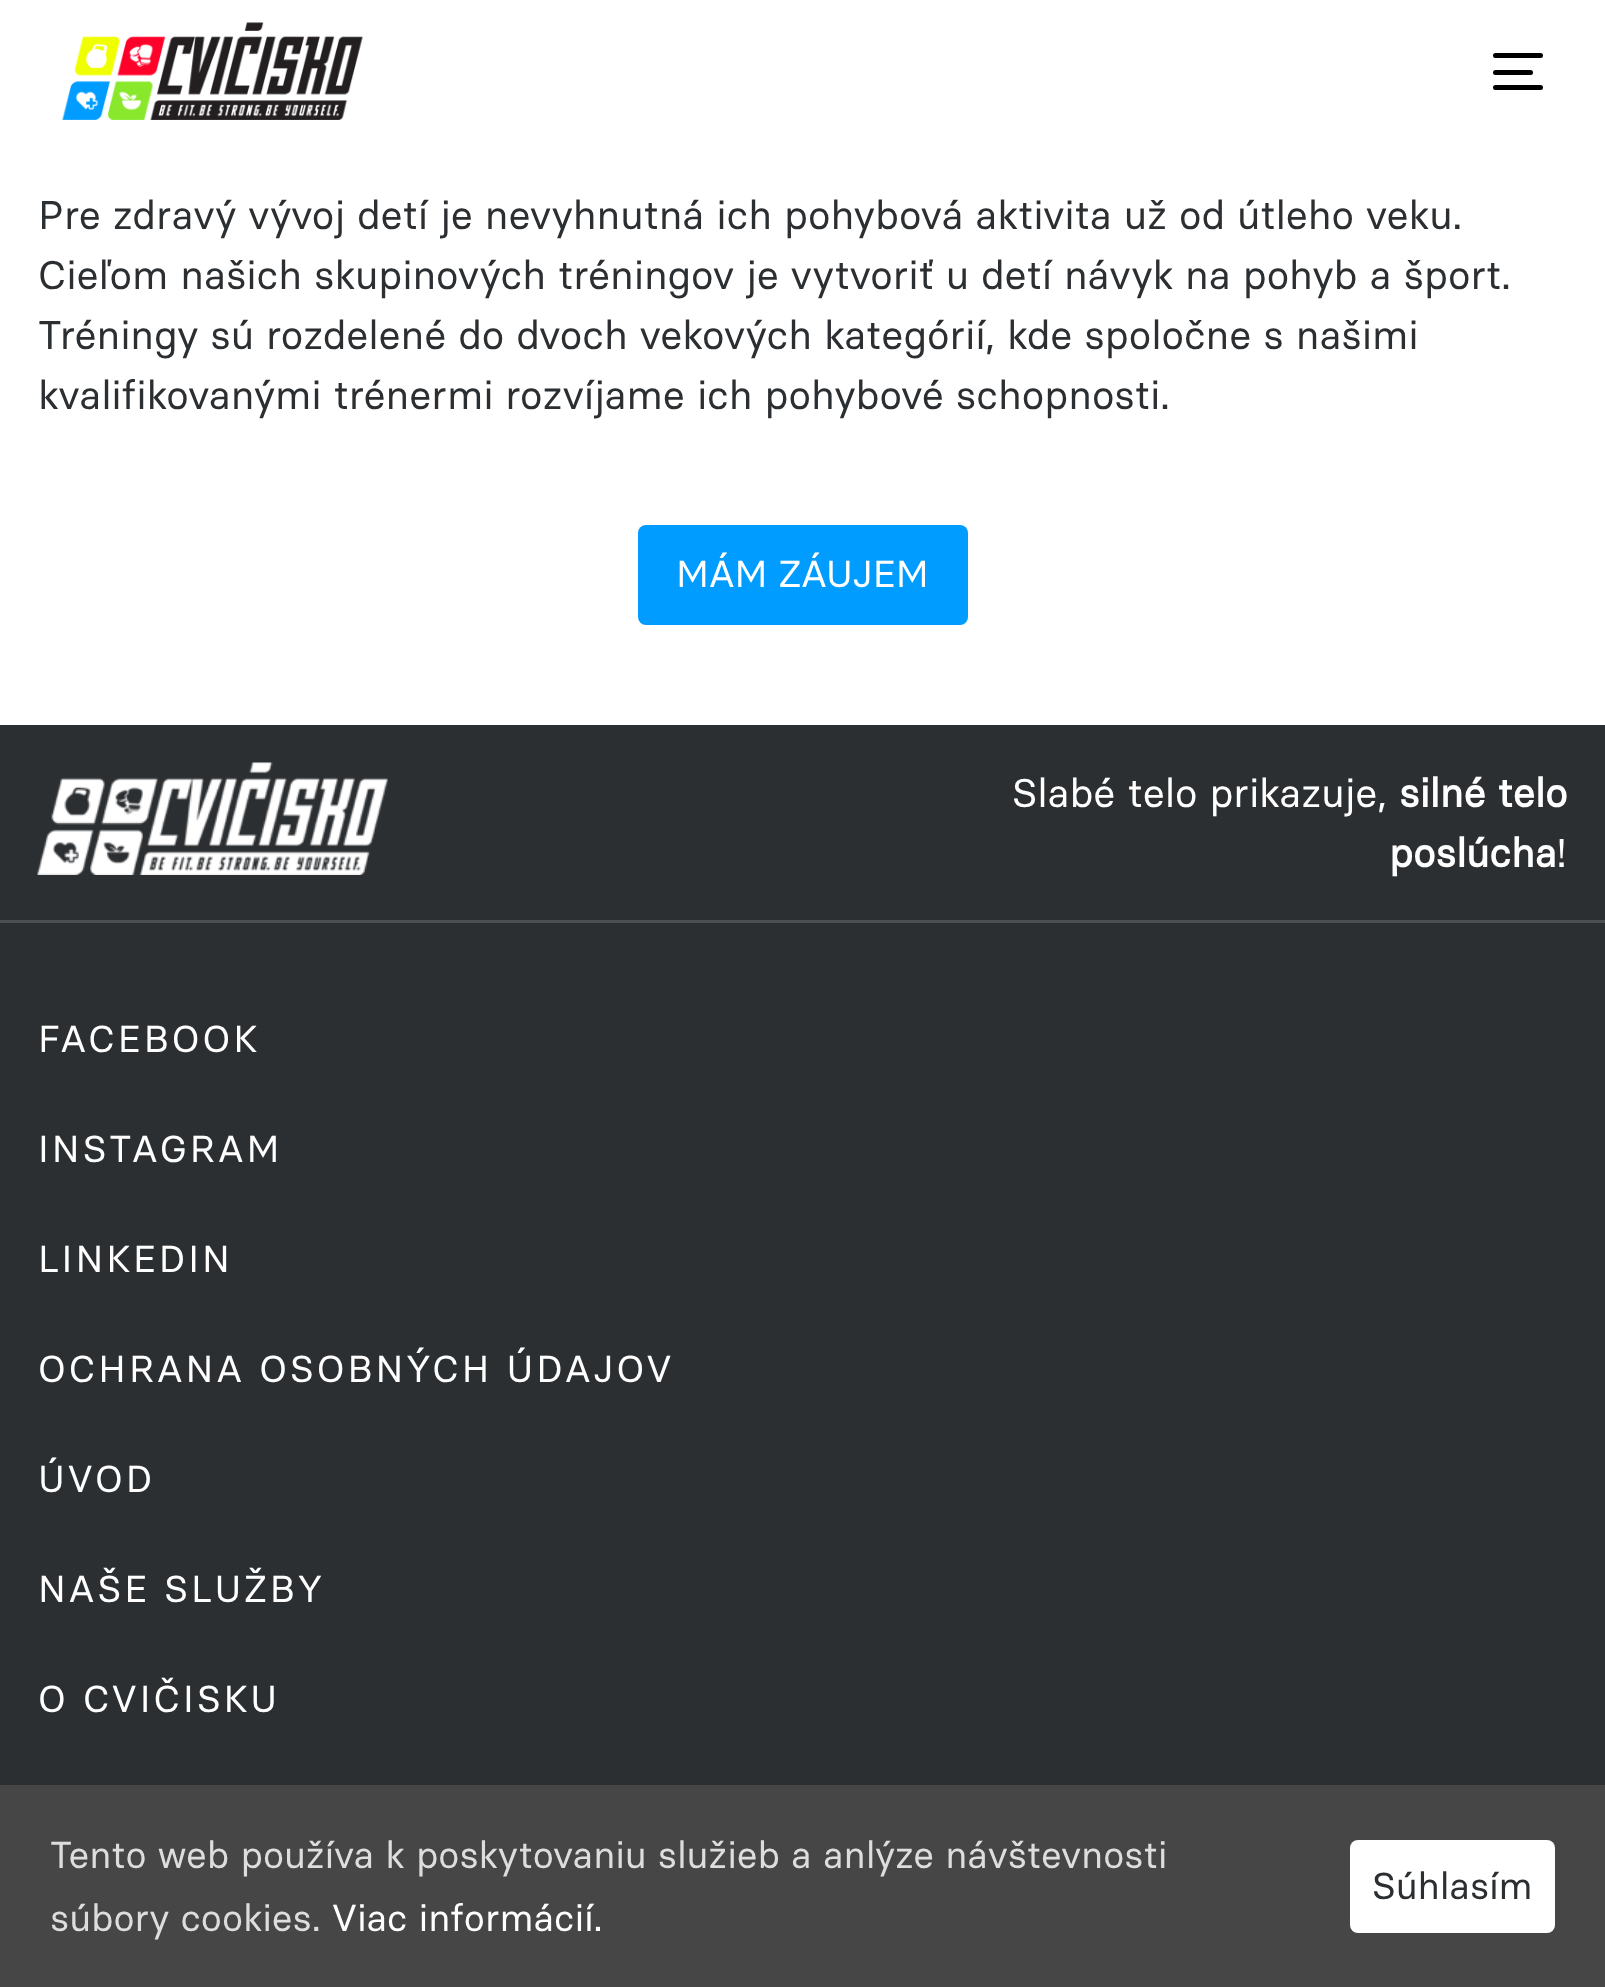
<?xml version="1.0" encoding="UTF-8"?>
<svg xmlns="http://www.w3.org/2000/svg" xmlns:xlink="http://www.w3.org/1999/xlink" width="1605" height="1987">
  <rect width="100%" height="100%" fill="#ffffff" />
  <image x="62" y="22" width="301" height="98" xlink:href="image1.png" />
  <rect x="1493" y="53" width="50" height="5" rx="2.5" fill="#000000" />
  <rect x="1493" y="70" width="40" height="5" rx="2.5" fill="#000000" />
  <rect x="1493" y="85" width="50" height="5" rx="2.5" fill="#000000" />
  <rect x="638" y="525" width="330" height="100" rx="8" fill="#009cff" />
  <rect y="725" width="1605" height="1060" fill="#2c2f32" />
  <image x="37" y="762" width="351" height="113" xlink:href="image2.png" />
  <rect y="920" width="1605" height="3" fill="#4c4e51" />
  <rect y="1785" width="1605" height="202" fill="#464646" />
  <rect x="1350" y="1840" width="205" height="93" rx="8" fill="#ffffff" />
  <text x="38" y="229" style="font-family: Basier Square; font-size: 40px; fill: #2c2f32">Pre zdravý vývoj detí je nevyhnutná ich pohybová aktivita už od útleho veku.</text>
  <text x="38" y="289" style="font-family: Basier Square; font-size: 40px; fill: #2c2f32">Cieľom našich skupinových tréningov je vytvoriť u detí návyk na pohyb a šport.</text>
  <text x="38" y="349" style="font-family: Basier Square; font-size: 40px; fill: #2c2f32">Tréningy sú rozdelené do dvoch vekových kategórií, kde spoločne s našimi</text>
  <text x="38" y="409" style="font-family: Basier Square; font-size: 40px; fill: #2c2f32">kvalifikovanými trénermi rozvíjame ich pohybové schopnosti.</text>
  <text x="676" y="587" style="font-family: Basier Square; font-size: 37.5px; fill: #ffffff">MÁM ZÁUJEM</text>
  <text x="1012" y="807" style="font-family: Basier Square; font-size: 40px; fill: #ffffff">Slabé telo prikazuje,</text>
  <text x="1399" y="807" style="font-family: Basier Square; font-size: 40px; font-weight: bold; fill: #ffffff">silné telo</text>
  <text x="1389" y="867" style="font-family: Basier Square; font-size: 40px; font-weight: bold; fill: #ffffff">poslúcha</text>
  <text x="1556" y="867" style="font-family: Basier Square; font-size: 40px; fill: #ffffff">!</text>
  <text x="38" y="1052" style="font-family: Basier Square; font-size: 37.5px; letter-spacing: 3px; fill: #ffffff">FACEBOOK</text>
  <text x="38" y="1162" style="font-family: Basier Square; font-size: 37.5px; letter-spacing: 3px; fill: #ffffff">INSTAGRAM</text>
  <text x="38" y="1272" style="font-family: Basier Square; font-size: 37.5px; letter-spacing: 3px; fill: #ffffff">LINKEDIN</text>
  <text x="38" y="1382" style="font-family: Basier Square; font-size: 37.5px; letter-spacing: 3px; fill: #ffffff">OCHRANA OSOBNÝCH ÚDAJOV</text>
  <text x="38" y="1492" style="font-family: Basier Square; font-size: 37.5px; letter-spacing: 3px; fill: #ffffff">ÚVOD</text>
  <text x="38" y="1602" style="font-family: Basier Square; font-size: 37.5px; letter-spacing: 3px; fill: #ffffff">NAŠE SLUŽBY</text>
  <text x="38" y="1712" style="font-family: Basier Square; font-size: 37.5px; letter-spacing: 3px; fill: #ffffff">O CVIČISKU</text>
  <text x="50" y="1868" style="font-family: Basier Square; font-size: 37.5px; fill: #dddddd">Tento web používa k poskytovaniu služieb a anlýze návštevnosti</text>
  <text x="50" y="1931" style="font-family: Basier Square; font-size: 37.5px; fill: #dddddd">súbory cookies.</text>
  <text x="332" y="1931" style="font-family: Basier Square; font-size: 37.5px; fill: #ffffff">Viac informácií.</text>
  <text x="1372" y="1899" style="font-family: Basier Square; font-size: 37.5px; fill: #2c2f32">Súhlasím</text>
</svg>
